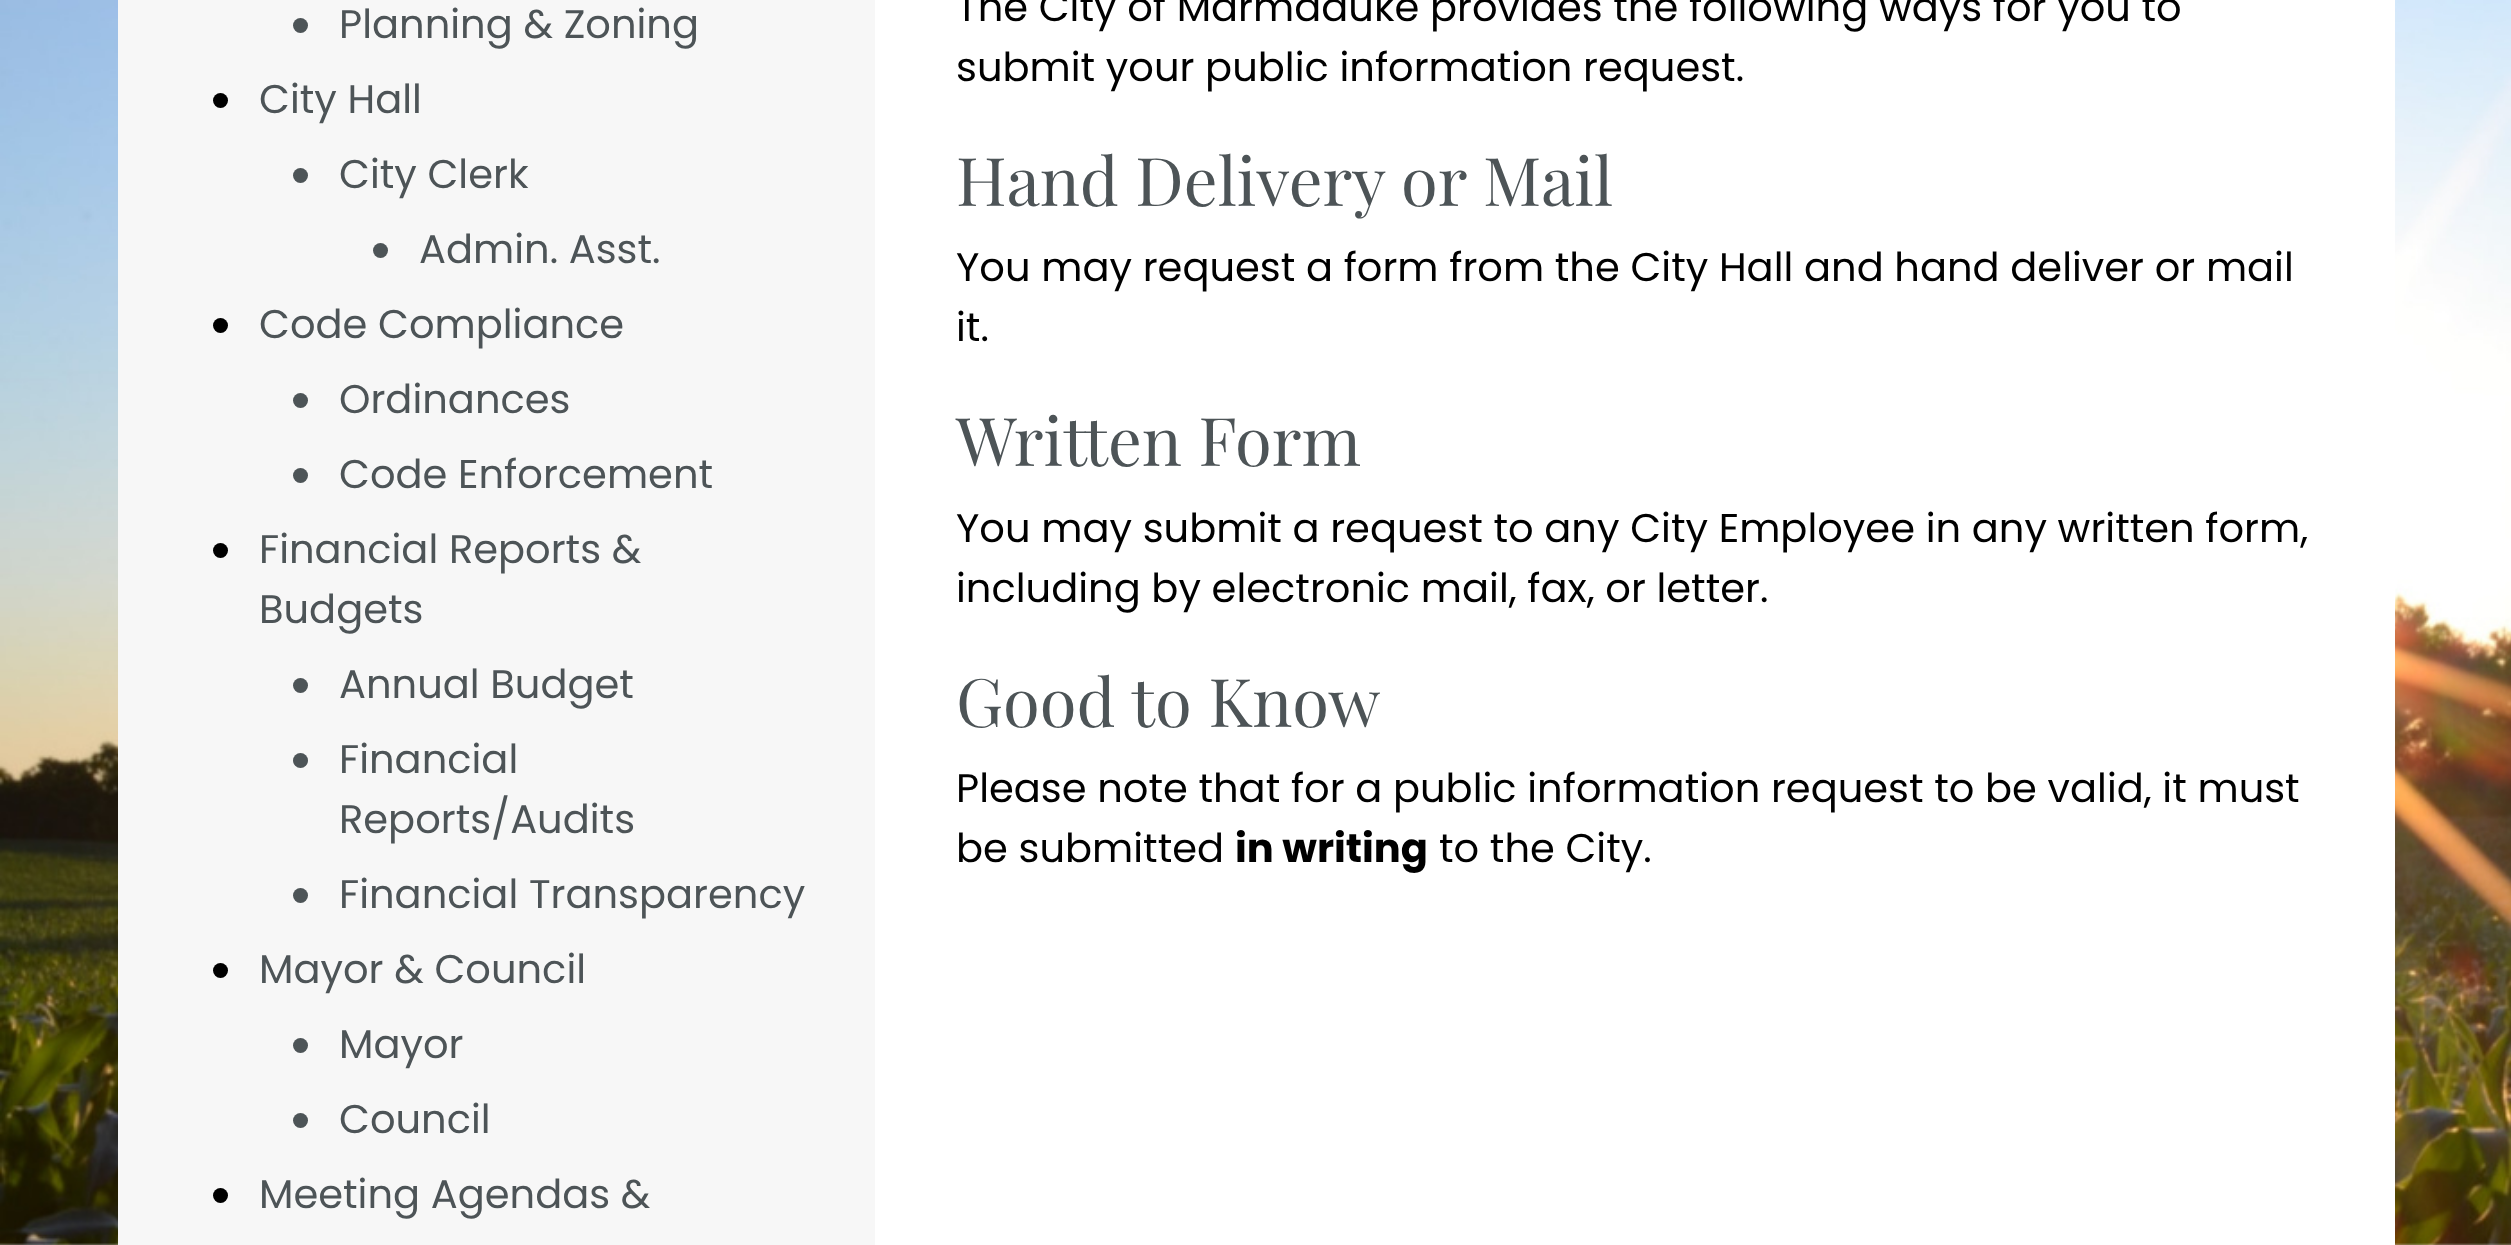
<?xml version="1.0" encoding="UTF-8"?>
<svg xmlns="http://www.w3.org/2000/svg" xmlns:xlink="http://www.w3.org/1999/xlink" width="2511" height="1245">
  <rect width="100%" height="100%" fill="#ffffff" />
  <image x="0" y="0" width="2511" height="1245" xlink:href="image1.png" />
  <rect x="118" width="757" height="1245" fill="#f7f7f7" />
  <circle cx="300.5" cy="25.5" r="7.5" fill="#4d5457" />
  <circle cx="220.5" cy="100.5" r="7.5" fill="#000000" />
  <circle cx="300.5" cy="175.5" r="7.5" fill="#4d5457" />
  <circle cx="380.5" cy="250.5" r="7.5" fill="#4d5457" />
  <circle cx="220.5" cy="325.5" r="7.5" fill="#000000" />
  <circle cx="300.5" cy="400.5" r="7.5" fill="#4d5457" />
  <circle cx="300.5" cy="475.5" r="7.5" fill="#4d5457" />
  <circle cx="220.5" cy="550.5" r="7.5" fill="#000000" />
  <circle cx="300.5" cy="685.5" r="7.5" fill="#4d5457" />
  <circle cx="300.5" cy="760.5" r="7.5" fill="#4d5457" />
  <circle cx="300.5" cy="895.5" r="7.5" fill="#4d5457" />
  <circle cx="220.5" cy="970.5" r="7.5" fill="#000000" />
  <circle cx="300.5" cy="1045.5" r="7.5" fill="#4d5457" />
  <circle cx="300.5" cy="1120.5" r="7.5" fill="#4d5457" />
  <circle cx="220.5" cy="1195.5" r="7.5" fill="#000000" />
  <rect x="875" width="1520" height="1245" fill="#ffffff" />
  <text x="339" y="38" style="font-family: Poppins; font-size: 40px; fill: #4d5457">Planning &amp; Zoning</text>
  <text x="259" y="113" style="font-family: Poppins; font-size: 40px; fill: #4d5457">City Hall</text>
  <text x="339" y="188" style="font-family: Poppins; font-size: 40px; fill: #4d5457">City Clerk</text>
  <text x="419" y="263" style="font-family: Poppins; font-size: 40px; fill: #4d5457">Admin. Asst.</text>
  <text x="259" y="338" style="font-family: Poppins; font-size: 40px; fill: #4d5457">Code Compliance</text>
  <text x="339" y="413" style="font-family: Poppins; font-size: 40px; fill: #4d5457">Ordinances</text>
  <text x="339" y="488" style="font-family: Poppins; font-size: 40px; fill: #4d5457">Code Enforcement</text>
  <text x="259" y="563" style="font-family: Poppins; font-size: 40px; fill: #4d5457">Financial Reports &amp;</text>
  <text x="259" y="623" style="font-family: Poppins; font-size: 40px; fill: #4d5457">Budgets</text>
  <text x="339" y="698" style="font-family: Poppins; font-size: 40px; fill: #4d5457">Annual Budget</text>
  <text x="339" y="773" style="font-family: Poppins; font-size: 40px; fill: #4d5457">Financial</text>
  <text x="339" y="833" style="font-family: Poppins; font-size: 40px; fill: #4d5457">Reports/Audits</text>
  <text x="339" y="908" style="font-family: Poppins; font-size: 40px; fill: #4d5457">Financial Transparency</text>
  <text x="259" y="983" style="font-family: Poppins; font-size: 40px; fill: #4d5457">Mayor &amp; Council</text>
  <text x="339" y="1058" style="font-family: Poppins; font-size: 40px; fill: #4d5457">Mayor</text>
  <text x="339" y="1133" style="font-family: Poppins; font-size: 40px; fill: #4d5457">Council</text>
  <text x="259" y="1208" style="font-family: Poppins; font-size: 40px; fill: #4d5457">Meeting Agendas &amp;</text>
  <text x="956" y="21" style="font-family: Poppins; font-size: 40px; fill: #000000">The City of Marmaduke provides the following ways for you to</text>
  <text x="956" y="81" style="font-family: Poppins; font-size: 40px; fill: #000000">submit your public information request.</text>
  <text x="956" y="206" style="font-family: Playfair Display; font-size: 67px; fill: #4d5457">Hand Delivery or Mail</text>
  <text x="956" y="281" style="font-family: Poppins; font-size: 40px; fill: #000000">You may request a form from the City Hall and hand deliver or mail</text>
  <text x="956" y="341" style="font-family: Poppins; font-size: 40px; fill: #000000">it.</text>
  <text x="956" y="466" style="font-family: Playfair Display; font-size: 67px; fill: #4d5457">Written Form</text>
  <text x="956" y="542" style="font-family: Poppins; font-size: 40px; fill: #000000">You may submit a request to any City Employee in any written form,</text>
  <text x="956" y="602" style="font-family: Poppins; font-size: 40px; fill: #000000">including by electronic mail, fax, or letter.</text>
  <text x="956" y="727" style="font-family: Playfair Display; font-size: 67px; fill: #4d5457">Good to Know</text>
  <text x="956" y="802" style="font-family: Poppins; font-size: 40px; fill: #000000">Please note that for a public information request to be valid, it must</text>
  <text x="956" y="862" style="font-family: Poppins; font-size: 40px; fill: #000000">be submitted</text>
  <text x="1235" y="862" style="font-family: Poppins; font-size: 40px; font-weight: bold; fill: #000000">in writing</text>
  <text x="1439" y="862" style="font-family: Poppins; font-size: 40px; fill: #000000">to the City.</text>
</svg>
